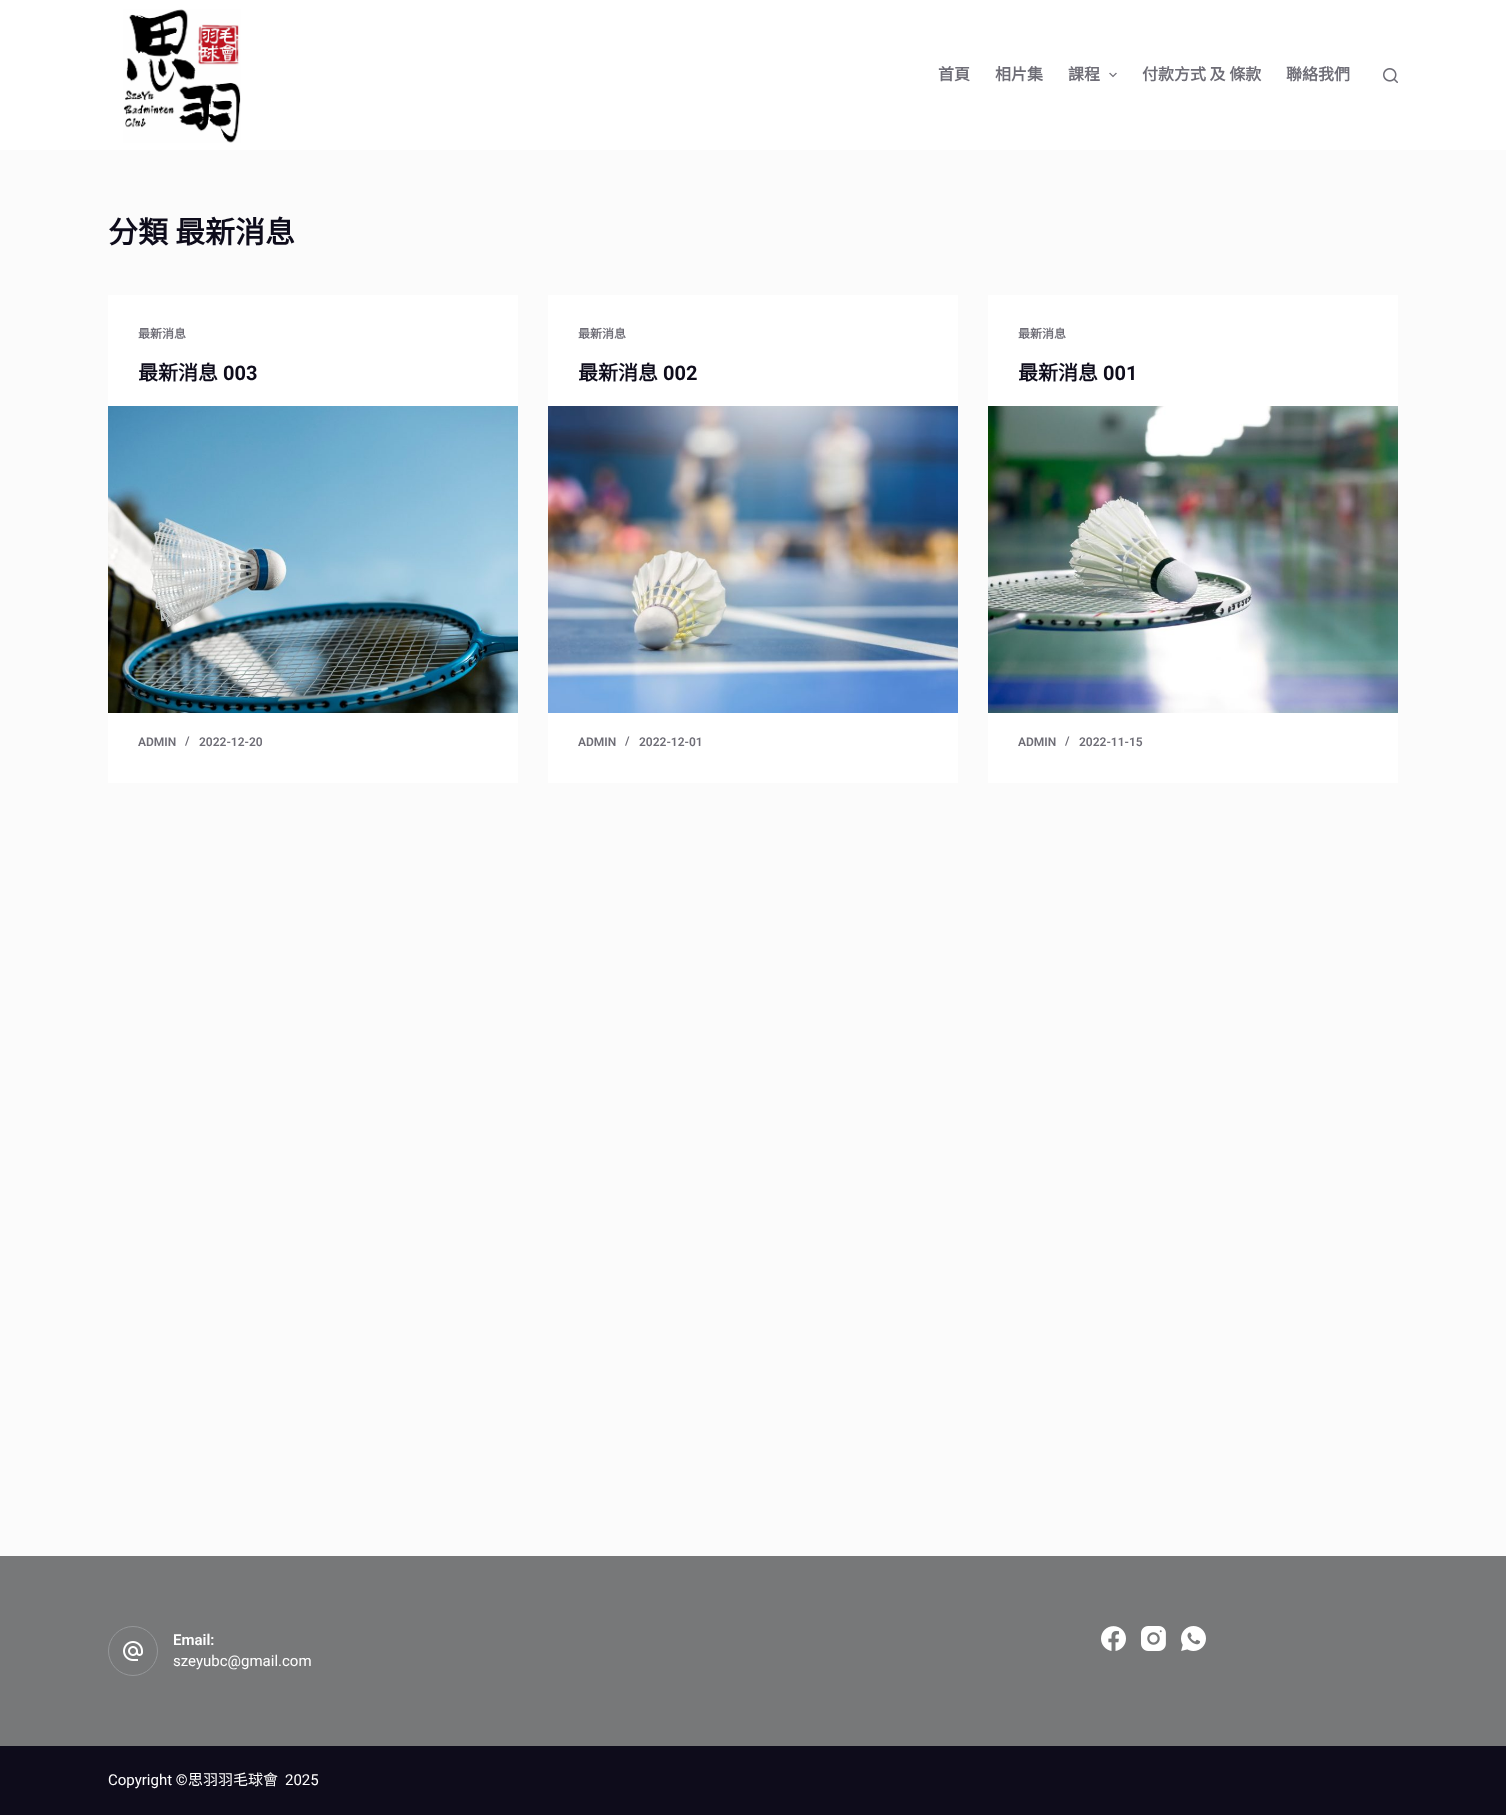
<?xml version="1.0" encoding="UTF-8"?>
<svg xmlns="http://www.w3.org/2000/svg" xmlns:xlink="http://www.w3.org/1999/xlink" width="1506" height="1815">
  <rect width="100%" height="100%" fill="#fbfbfb" />
  <rect width="1506" height="150" fill="#ffffff" />
  <image x="123" y="9" width="118" height="134" xlink:href="image1.png" />
  <image x="1109" y="72" width="8" height="6" xlink:href="image2.png" />
  <image x="1383" y="68" width="15" height="15" xlink:href="image3.png" />
  <rect x="108" y="295" width="410" height="488" fill="#ffffff" />
  <image x="108" y="406" width="410" height="307" xlink:href="image4.png" />
  <rect x="548" y="295" width="410" height="488" fill="#ffffff" />
  <image x="548" y="406" width="410" height="307" xlink:href="image5.png" />
  <rect x="988" y="295" width="410" height="488" fill="#ffffff" />
  <image x="988" y="406" width="410" height="307" xlink:href="image6.png" />
  <rect y="1556" width="1506" height="190" fill="#777879" />
  <circle cx="133" cy="1651" r="24.5" fill="none" stroke="#959799" />
  <image x="123" y="1641" width="20" height="20" xlink:href="image7.png" />
  <image x="1101" y="1626" width="25" height="25" xlink:href="image8.png" />
  <image x="1141" y="1626" width="25" height="25" xlink:href="image9.png" />
  <image x="1181" y="1626" width="25" height="25" xlink:href="image10.png" />
  <rect y="1746" width="1506" height="69" fill="#0e0c1b" />
  <text x="938" y="80" style="font-family: Noto Sans CJK HK; font-size: 16px; font-weight: bold; fill: #6e6d76">首頁</text>
  <text x="995" y="80" style="font-family: Noto Sans CJK HK; font-size: 16px; font-weight: bold; fill: #6e6d76">相片集</text>
  <text x="1068" y="80" style="font-family: Noto Sans CJK HK; font-size: 16px; font-weight: bold; fill: #6e6d76">課程</text>
  <text x="1142" y="80" style="font-family: Noto Sans CJK HK; font-size: 16px; font-weight: bold; fill: #6e6d76">付款方式 及 條款</text>
  <text x="1286" y="80" style="font-family: Noto Sans CJK HK; font-size: 16px; font-weight: bold; fill: #6e6d76">聯絡我們</text>
  <text x="108" y="243" style="font-family: Noto Sans CJK HK; font-size: 30px; font-weight: bold; fill: #0e0c1b">分類</text>
  <text x="175" y="243" style="font-family: Noto Sans CJK HK; font-size: 30px; font-weight: bold; fill: #0e0c1b">最新消息</text>
  <text x="138" y="338" style="font-family: Noto Sans CJK HK; font-size: 12px; font-weight: bold; fill: #6e6d76">最新消息</text>
  <text x="138" y="380" style="font-family: Noto Sans CJK HK; font-size: 20px; font-weight: bold; fill: #0e0c1b">最新消息</text>
  <text x="223" y="380" style="font-family: Roboto; font-size: 20px; font-weight: bold; fill: #0e0c1b">003</text>
  <text x="138" y="746" style="font-family: Roboto; font-size: 12px; font-weight: 600; fill: #6e6d76">ADMIN</text>
  <text x="185" y="745" style="font-family: Roboto; font-size: 12px; font-weight: 600; fill: #6e6d76">/</text>
  <text x="199" y="746" style="font-family: Roboto; font-size: 12px; font-weight: 600; fill: #6e6d76">2022-12-20</text>
  <text x="578" y="338" style="font-family: Noto Sans CJK HK; font-size: 12px; font-weight: bold; fill: #6e6d76">最新消息</text>
  <text x="578" y="380" style="font-family: Noto Sans CJK HK; font-size: 20px; font-weight: bold; fill: #0e0c1b">最新消息</text>
  <text x="663" y="380" style="font-family: Roboto; font-size: 20px; font-weight: bold; fill: #0e0c1b">002</text>
  <text x="578" y="746" style="font-family: Roboto; font-size: 12px; font-weight: 600; fill: #6e6d76">ADMIN</text>
  <text x="625" y="745" style="font-family: Roboto; font-size: 12px; font-weight: 600; fill: #6e6d76">/</text>
  <text x="639" y="746" style="font-family: Roboto; font-size: 12px; font-weight: 600; fill: #6e6d76">2022-12-01</text>
  <text x="1018" y="338" style="font-family: Noto Sans CJK HK; font-size: 12px; font-weight: bold; fill: #6e6d76">最新消息</text>
  <text x="1018" y="380" style="font-family: Noto Sans CJK HK; font-size: 20px; font-weight: bold; fill: #0e0c1b">最新消息</text>
  <text x="1103" y="380" style="font-family: Roboto; font-size: 20px; font-weight: bold; fill: #0e0c1b">001</text>
  <text x="1018" y="746" style="font-family: Roboto; font-size: 12px; font-weight: 600; fill: #6e6d76">ADMIN</text>
  <text x="1065" y="745" style="font-family: Roboto; font-size: 12px; font-weight: 600; fill: #6e6d76">/</text>
  <text x="1079" y="746" style="font-family: Roboto; font-size: 12px; font-weight: 600; fill: #6e6d76">2022-11-15</text>
  <text x="173" y="1645" style="font-family: Roboto; font-size: 15px; font-weight: 600; fill: #ffffff">Email:</text>
  <text x="173" y="1666" style="font-family: Roboto; font-size: 15px; fill: #ffffff">szeyubc@gmail.com</text>
  <text x="108" y="1785" style="font-family: Roboto; font-size: 15px; fill: #ffffff">Copyright ©</text>
  <text x="188" y="1785" style="font-family: Noto Sans CJK HK; font-size: 15px; fill: #ffffff">思羽羽毛球會</text>
  <text x="285" y="1785" style="font-family: Roboto; font-size: 15px; fill: #ffffff">2025</text>
</svg>
